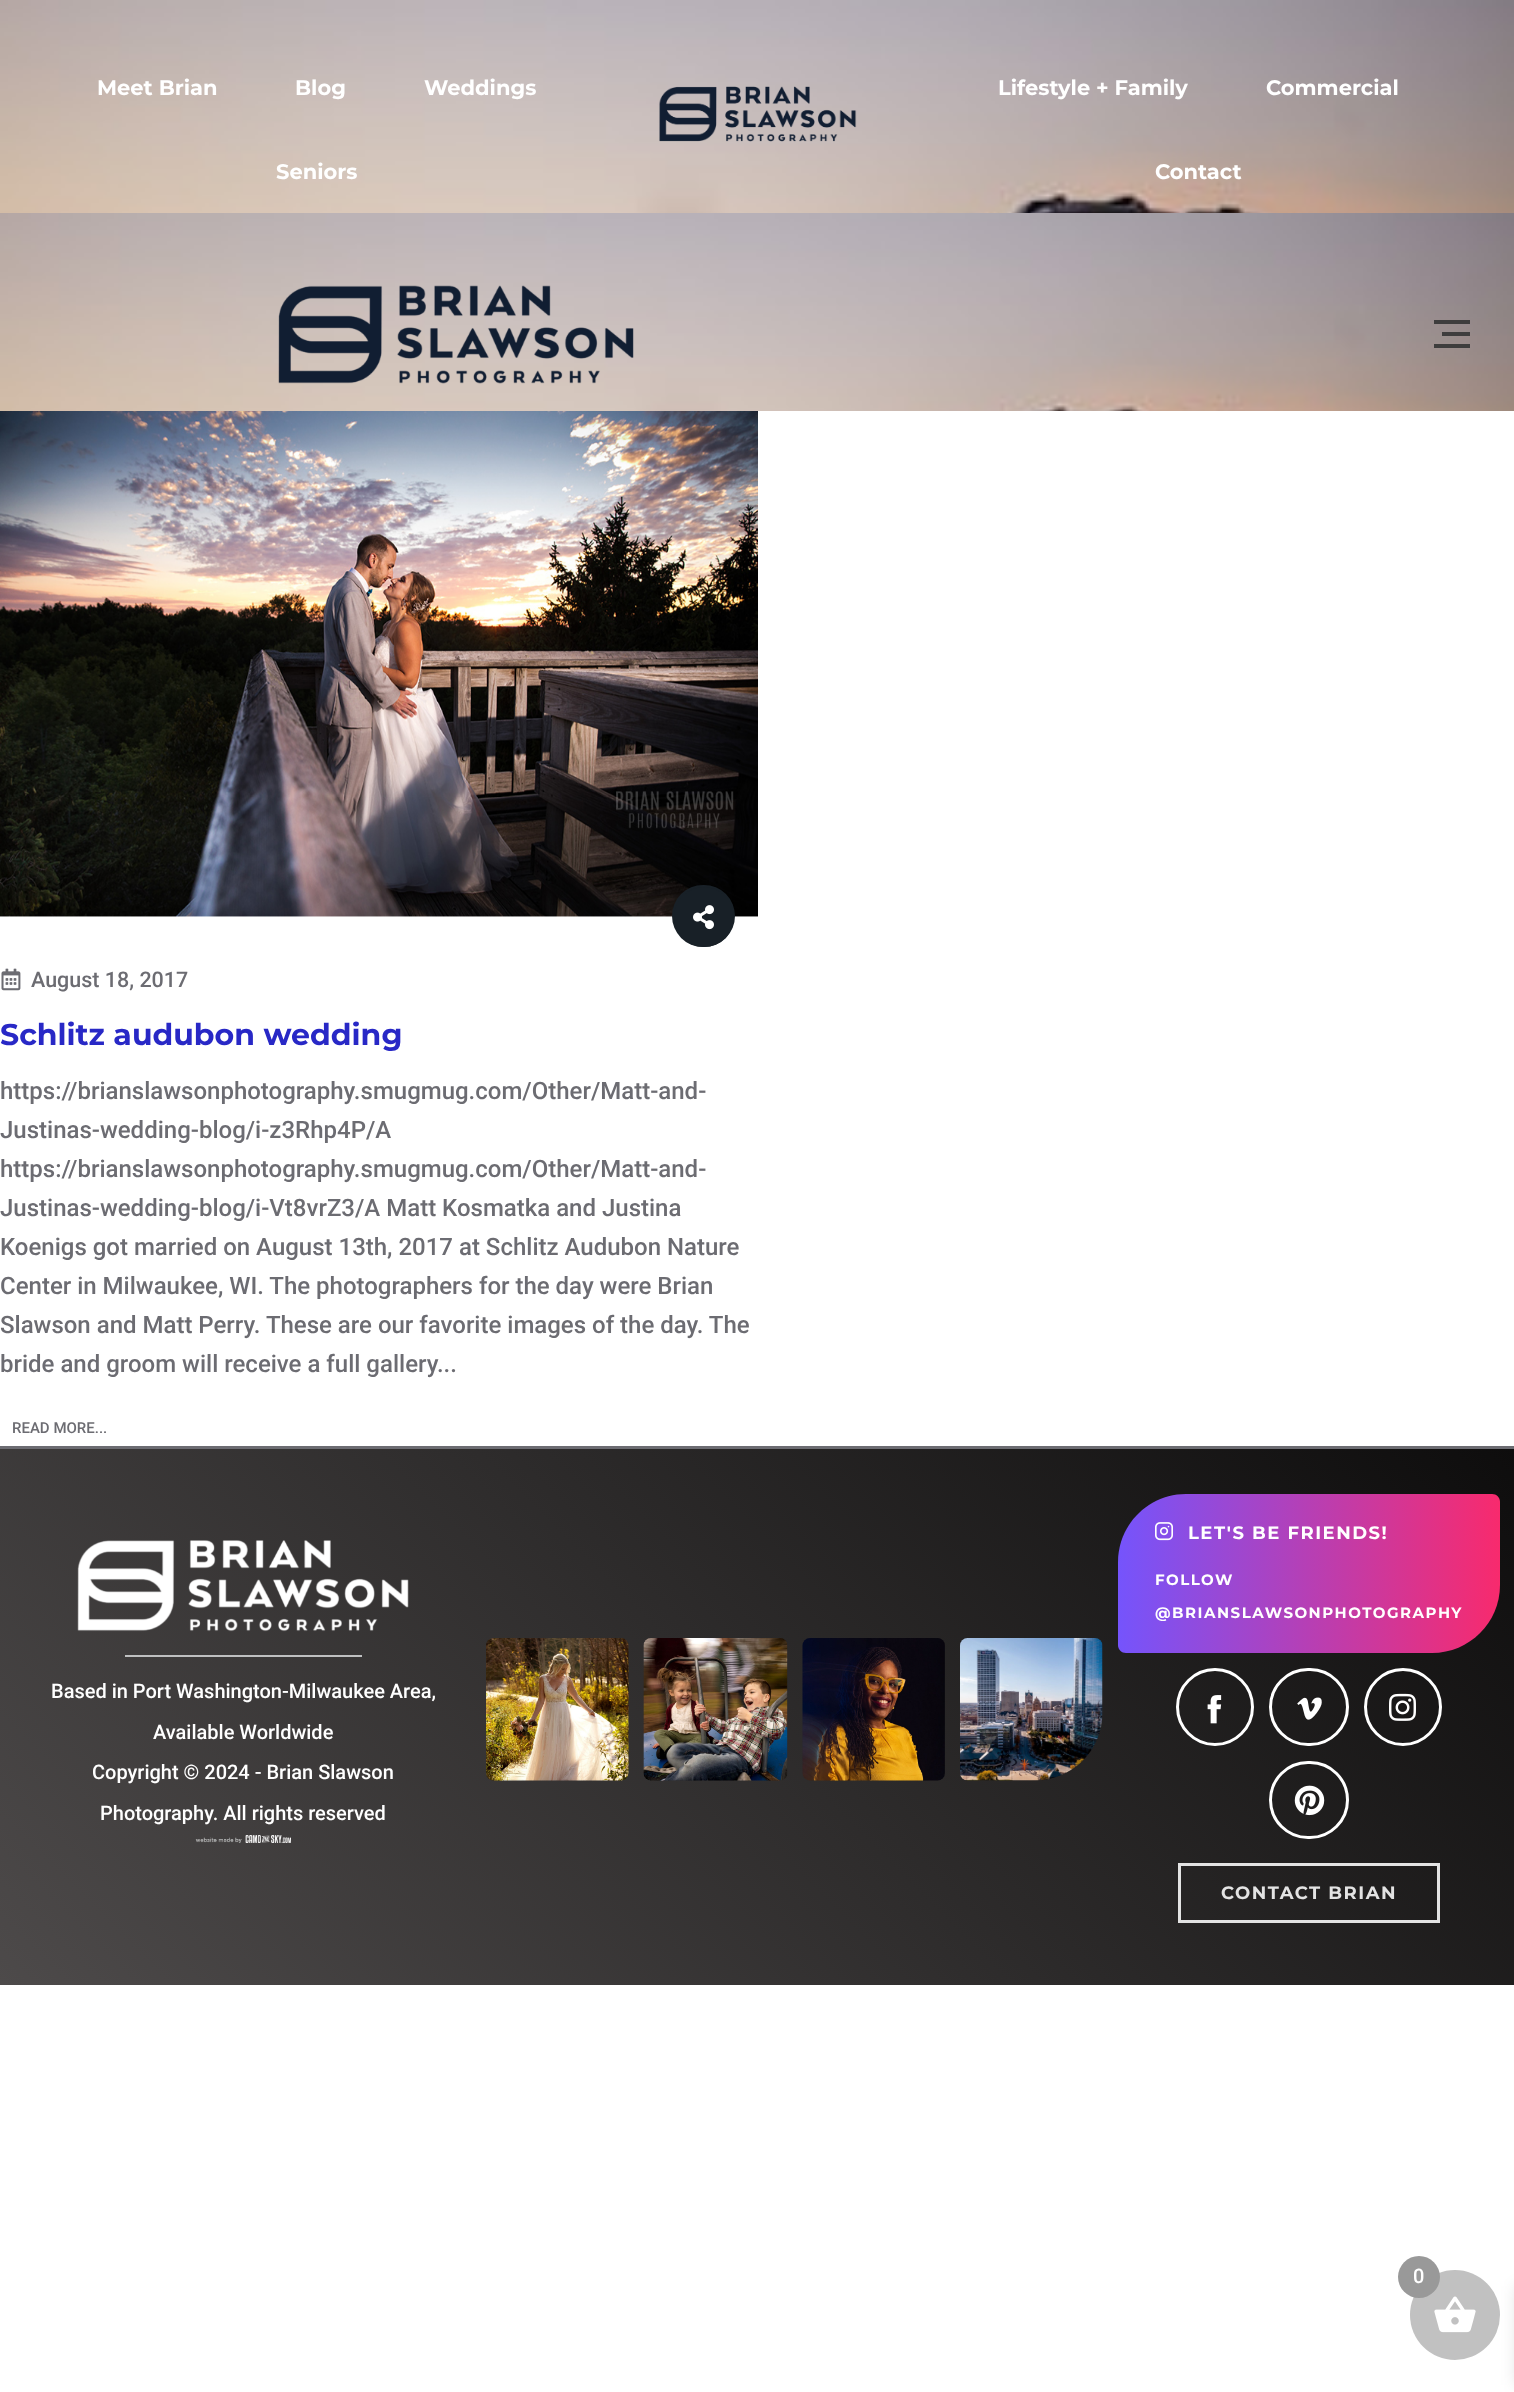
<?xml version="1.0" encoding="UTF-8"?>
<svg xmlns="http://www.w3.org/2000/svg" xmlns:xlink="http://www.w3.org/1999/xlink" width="1514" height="2392">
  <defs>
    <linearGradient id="g1" gradientUnits="userSpaceOnUse" x1="245" y1="2229" x2="1270" y2="1204"><stop offset="0" stop-color="#4d4a4a" /><stop offset="1" stop-color="#0e0d0d" /></linearGradient>
    <linearGradient id="g2" gradientUnits="userSpaceOnUse" x1="1118" y1="1574" x2="1500" y2="1574"><stop offset="0" stop-color="#7554fc" /><stop offset="1" stop-color="#f82a6d" /></linearGradient>
  </defs>
  <rect width="100%" height="100%" fill="#ffffff" />
  <image x="0" y="0" width="1514" height="213" xlink:href="image1.png" />
  <image x="659" y="86" width="198" height="56" xlink:href="image2.png" />
  <image x="0" y="213" width="1514" height="198" xlink:href="image3.png" />
  <image x="278" y="285" width="356" height="99" xlink:href="image4.png" />
  <rect x="1434" y="320" width="36" height="4" fill="#3e3d3d" />
  <rect x="1442" y="332" width="28" height="4" fill="#3e3d3d" />
  <rect x="1434" y="344" width="36" height="4" fill="#3e3d3d" />
  <image x="0" y="411" width="758" height="506" xlink:href="image5.png" />
  <rect x="672" y="885" width="63" height="62" rx="31" fill="#182027" />
  <circle cx="704" cy="917" r="30" fill="#182027" />
  <image x="693" y="905" width="21" height="25" xlink:href="image6.png" />
  <image x="1" y="968" width="20" height="23" xlink:href="image7.png" />
  <rect y="1446" width="1514" height="3" fill="#6c6c72" />
  <rect y="1449" width="1514" height="536" fill="url(#g1)" />
  <image x="77" y="1540" width="332" height="92" xlink:href="image8.png" />
  <rect x="125" y="1655" width="237" height="2" fill="#bfc0c1" />
  <image x="195" y="1835" width="96" height="8" xlink:href="image9.png" />
  <image x="486" y="1638" width="143" height="143" xlink:href="image10.png" />
  <image x="643" y="1638" width="145" height="143" xlink:href="image11.png" />
  <image x="802" y="1638" width="143" height="143" xlink:href="image12.png" />
  <image x="960" y="1638" width="143" height="143" xlink:href="image13.png" />
  <path d="M 1186 1494 h 306 c 4.5 0 8 3.5 8 8 v 83 c 0 37.5 -30.5 68 -68 68 h -306 c -4.5 0 -8 -3.5 -8 -8 v -83 c 0 -37.5 30.5 -68 68 -68 z" fill="url(#g2)" />
  <image x="1155" y="1522" width="18" height="19" xlink:href="image14.png" />
  <circle cx="1215" cy="1707" r="37.5" fill="none" stroke="#ffffff" stroke-width="3" />
  <image x="1207" y="1695" width="15" height="29" xlink:href="image15.png" />
  <rect x="1270.5" y="1669.5" width="77" height="75" rx="37.5" fill="none" stroke="#ffffff" stroke-width="3" />
  <image x="1297" y="1697" width="25" height="23" xlink:href="image16.png" />
  <circle cx="1403" cy="1707" r="37.5" fill="none" stroke="#ffffff" stroke-width="3" />
  <image x="1389" y="1693" width="27" height="28" xlink:href="image17.png" />
  <rect x="1270.5" y="1762.5" width="77" height="75" rx="37.5" fill="none" stroke="#ffffff" stroke-width="3" />
  <image x="1294" y="1785" width="31" height="31" xlink:href="image18.png" />
  <rect x="1179.5" y="1864.5" width="259" height="57" fill="none" stroke="#e3e3e3" stroke-width="3" />
  <rect x="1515" y="2286" width="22" height="99" fill="#000000" fill-opacity="0.1" filter="blur(7.5px)" />
  <circle cx="1455" cy="2315" r="45" fill="#c1c1c1" />
  <image x="1434" y="2296" width="42" height="37" xlink:href="image19.png" />
  <circle cx="1419" cy="2277" r="21" fill="#999999" />
  <text x="97" y="95" style="font-family: Montserrat; font-size: 21px; font-weight: 100; fill: #ffffff">Meet Brian</text>
  <text x="295" y="95" style="font-family: Montserrat; font-size: 21px; font-weight: 100; fill: #ffffff">Blog</text>
  <text x="424" y="95" style="font-family: Montserrat; font-size: 21px; font-weight: 100; fill: #ffffff">Weddings</text>
  <text x="276" y="179" style="font-family: Montserrat; font-size: 21px; font-weight: 100; fill: #ffffff">Seniors</text>
  <text x="998" y="95" style="font-family: Montserrat; font-size: 21px; font-weight: 100; fill: #ffffff">Lifestyle + Family</text>
  <text x="1266" y="95" style="font-family: Montserrat; font-size: 21px; font-weight: 100; fill: #ffffff">Commercial</text>
  <text x="1155" y="179" style="font-family: Montserrat; font-size: 21px; font-weight: 100; fill: #ffffff">Contact</text>
  <text x="31" y="987" style="font-family: Roboto; font-size: 21.5px; font-weight: 500; fill: #6c6c72">August 18, 2017</text>
  <text x="0" y="1045" style="font-family: Montserrat; font-size: 30px; font-weight: 100; fill: #2828c6">Schlitz audubon wedding</text>
  <text x="0" y="1099" style="font-family: Roboto; font-size: 24px; font-weight: 500; fill: #6c6c72">https://brianslawsonphotography.smugmug.com/Other/Matt-and-</text>
  <text x="0" y="1138" style="font-family: Roboto; font-size: 24px; font-weight: 500; fill: #6c6c72">Justinas-wedding-blog/i-z3Rhp4P/A</text>
  <text x="0" y="1177" style="font-family: Roboto; font-size: 24px; font-weight: 500; fill: #6c6c72">https://brianslawsonphotography.smugmug.com/Other/Matt-and-</text>
  <text x="0" y="1216" style="font-family: Roboto; font-size: 24px; font-weight: 500; fill: #6c6c72">Justinas-wedding-blog/i-Vt8vrZ3/A Matt Kosmatka and Justina</text>
  <text x="0" y="1255" style="font-family: Roboto; font-size: 24px; font-weight: 500; fill: #6c6c72">Koenigs got married on August 13th, 2017 at Schlitz Audubon Nature</text>
  <text x="0" y="1294" style="font-family: Roboto; font-size: 24px; font-weight: 500; fill: #6c6c72">Center in Milwaukee, WI. The photographers for the day were Brian</text>
  <text x="0" y="1333" style="font-family: Roboto; font-size: 24px; font-weight: 500; fill: #6c6c72">Slawson and Matt Perry. These are our favorite images of the day. The</text>
  <text x="0" y="1372" style="font-family: Roboto; font-size: 24px; font-weight: 500; fill: #6c6c72">bride and groom will receive a full gallery...</text>
  <text x="12" y="1433" style="font-family: Roboto; font-size: 15px; font-weight: 500; fill: #6c6c72">READ MORE...</text>
  <text x="51" y="1698" style="font-family: Roboto; font-size: 20px; font-weight: 500; fill: #ffffff">Based in Port Washington-Milwaukee Area,</text>
  <text x="153" y="1739" style="font-family: Roboto; font-size: 20px; font-weight: 500; fill: #ffffff">Available Worldwide</text>
  <text x="92" y="1779" style="font-family: Roboto; font-size: 20px; font-weight: 500; fill: #ffffff">Copyright © 2024 - Brian Slawson</text>
  <text x="100" y="1820" style="font-family: Roboto; font-size: 20px; font-weight: 500; fill: #ffffff">Photography. All rights reserved</text>
  <text x="1188" y="1539" style="font-family: Montserrat; font-size: 18px; font-weight: 100; letter-spacing: 1.5px; fill: #ffffff">LET'S BE FRIENDS!</text>
  <text x="1155" y="1585" style="font-family: Montserrat; font-size: 15px; font-weight: 100; letter-spacing: 1.5px; fill: #ffffff">FOLLOW</text>
  <text x="1155" y="1618" style="font-family: Montserrat; font-size: 15px; font-weight: 100; letter-spacing: 1.5px; fill: #ffffff">@BRIANSLAWSONPHOTOGRAPHY</text>
  <text x="1221" y="1899" style="font-family: Montserrat; font-size: 18px; font-weight: 100; letter-spacing: 1.5px; fill: #e3e3e3">CONTACT BRIAN</text>
  <text x="1413" y="2283" style="font-family: Roboto; font-size: 20px; font-weight: 500; fill: #ffffff">0</text>
</svg>
